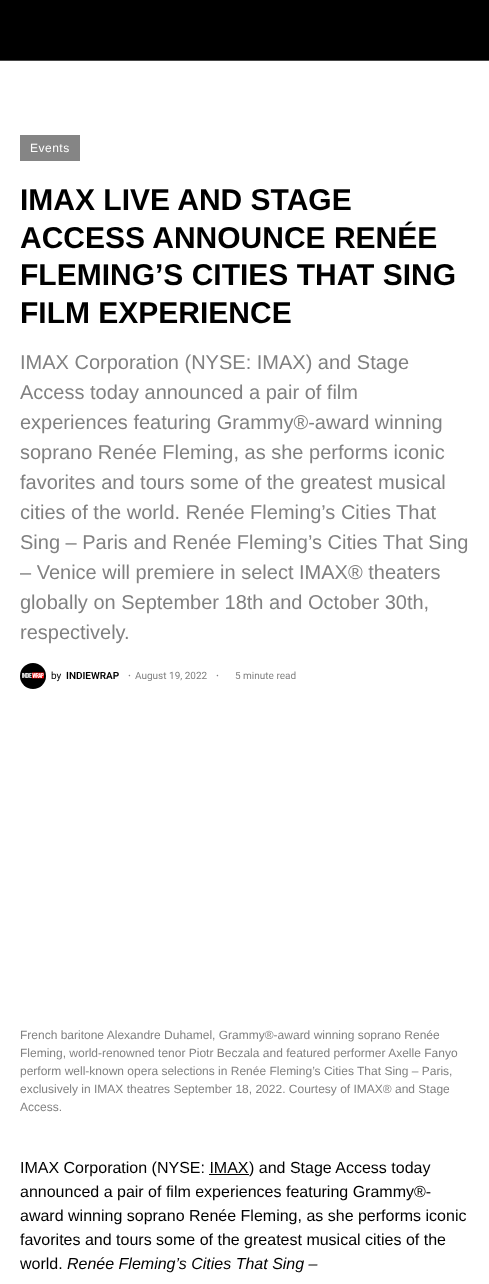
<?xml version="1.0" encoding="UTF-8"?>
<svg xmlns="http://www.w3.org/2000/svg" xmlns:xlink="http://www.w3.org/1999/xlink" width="489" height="1284">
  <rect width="100%" height="100%" fill="#ffffff" />
  <rect width="489" height="60" fill="#000000" />
  <rect y="60" width="489" height="1" fill="#494949" />
  <rect x="20" y="135" width="60" height="26" fill="#858585" />
  <image x="20" y="663" width="26" height="26" xlink:href="image1.png" />
  <rect x="209" y="1174" width="40" height="1" fill="#000000" />
  <text x="30" y="152" style="font-family: Liberation Sans; font-size: 12px; letter-spacing: 0.5px; fill: #ffffff">Events</text>
  <text x="20" y="210" style="font-family: Liberation Sans; font-size: 30px; font-weight: bold; fill: #000000">IMAX LIVE AND STAGE</text>
  <text x="20" y="248" style="font-family: Liberation Sans; font-size: 30px; font-weight: bold; fill: #000000">ACCESS ANNOUNCE RENÉE</text>
  <text x="20" y="285" style="font-family: Liberation Sans; font-size: 30px; font-weight: bold; fill: #000000">FLEMING’S CITIES THAT SING</text>
  <text x="20" y="323" style="font-family: Liberation Sans; font-size: 30px; font-weight: bold; fill: #000000">FILM EXPERIENCE</text>
  <text x="20" y="369" style="font-family: Liberation Sans; font-size: 20px; fill: #818181">IMAX Corporation (NYSE: IMAX) and Stage</text>
  <text x="20" y="399" style="font-family: Liberation Sans; font-size: 20px; fill: #818181">Access today announced a pair of film</text>
  <text x="20" y="429" style="font-family: Liberation Sans; font-size: 20px; fill: #818181">experiences featuring Grammy®-award winning</text>
  <text x="20" y="459" style="font-family: Liberation Sans; font-size: 20px; fill: #818181">soprano Renée Fleming, as she performs iconic</text>
  <text x="20" y="489" style="font-family: Liberation Sans; font-size: 20px; fill: #818181">favorites and tours some of the greatest musical</text>
  <text x="20" y="519" style="font-family: Liberation Sans; font-size: 20px; fill: #818181">cities of the world. Renée Fleming’s Cities That</text>
  <text x="20" y="549" style="font-family: Liberation Sans; font-size: 20px; fill: #818181">Sing – Paris and Renée Fleming’s Cities That Sing</text>
  <text x="20" y="579" style="font-family: Liberation Sans; font-size: 20px; fill: #818181">– Venice will premiere in select IMAX® theaters</text>
  <text x="20" y="609" style="font-family: Liberation Sans; font-size: 20px; fill: #818181">globally on September 18th and October 30th,</text>
  <text x="20" y="639" style="font-family: Liberation Sans; font-size: 20px; fill: #818181">respectively.</text>
  <text x="51" y="679" style="font-family: Roboto; font-size: 10px; fill: #000000">by</text>
  <text x="66" y="679" style="font-family: Roboto; font-size: 10px; font-weight: 600; fill: #000000">INDIEWRAP</text>
  <text x="128" y="679" style="font-family: Roboto; font-size: 10px; font-weight: 600; fill: #818181">·</text>
  <text x="135" y="679" style="font-family: Roboto; font-size: 10px; fill: #818181">August 19, 2022</text>
  <text x="216" y="679" style="font-family: Roboto; font-size: 10px; font-weight: 600; fill: #818181">·</text>
  <text x="235" y="679" style="font-family: Roboto; font-size: 10px; fill: #818181">5 minute read</text>
  <text x="20" y="1039" style="font-family: Liberation Sans; font-size: 12px; fill: #818181">French baritone Alexandre Duhamel, Grammy®-award winning soprano Renée</text>
  <text x="20" y="1057" style="font-family: Liberation Sans; font-size: 12px; fill: #818181">Fleming, world-renowned tenor Piotr Beczala and featured performer Axelle Fanyo</text>
  <text x="20" y="1075" style="font-family: Liberation Sans; font-size: 12px; fill: #818181">perform well-known opera selections in Renée Fleming’s Cities That Sing – Paris,</text>
  <text x="20" y="1093" style="font-family: Liberation Sans; font-size: 12px; fill: #818181">exclusively in IMAX theatres September 18, 2022. Courtesy of IMAX® and Stage</text>
  <text x="20" y="1111" style="font-family: Liberation Sans; font-size: 12px; fill: #818181">Access.</text>
  <text x="20" y="1173" style="font-family: Liberation Sans; font-size: 16px; fill: #000000">IMAX Corporation (NYSE: IMAX</text>
  <text x="249" y="1173" style="font-family: Liberation Sans; font-size: 16px; fill: #000000">) and Stage Access today</text>
  <text x="20" y="1197" style="font-family: Liberation Sans; font-size: 16px; fill: #000000">announced a pair of film experiences featuring Grammy®-</text>
  <text x="20" y="1221" style="font-family: Liberation Sans; font-size: 16px; fill: #000000">award winning soprano Renée Fleming, as she performs iconic</text>
  <text x="20" y="1245" style="font-family: Liberation Sans; font-size: 16px; fill: #000000">favorites and tours some of the greatest musical cities of the</text>
  <text x="20" y="1269" style="font-family: Liberation Sans; font-size: 16px; fill: #000000">world.</text>
  <text x="67" y="1269" style="font-family: Liberation Sans; font-size: 16px; font-style: italic; fill: #000000">Renée Fleming’s Cities That Sing –</text>
</svg>
